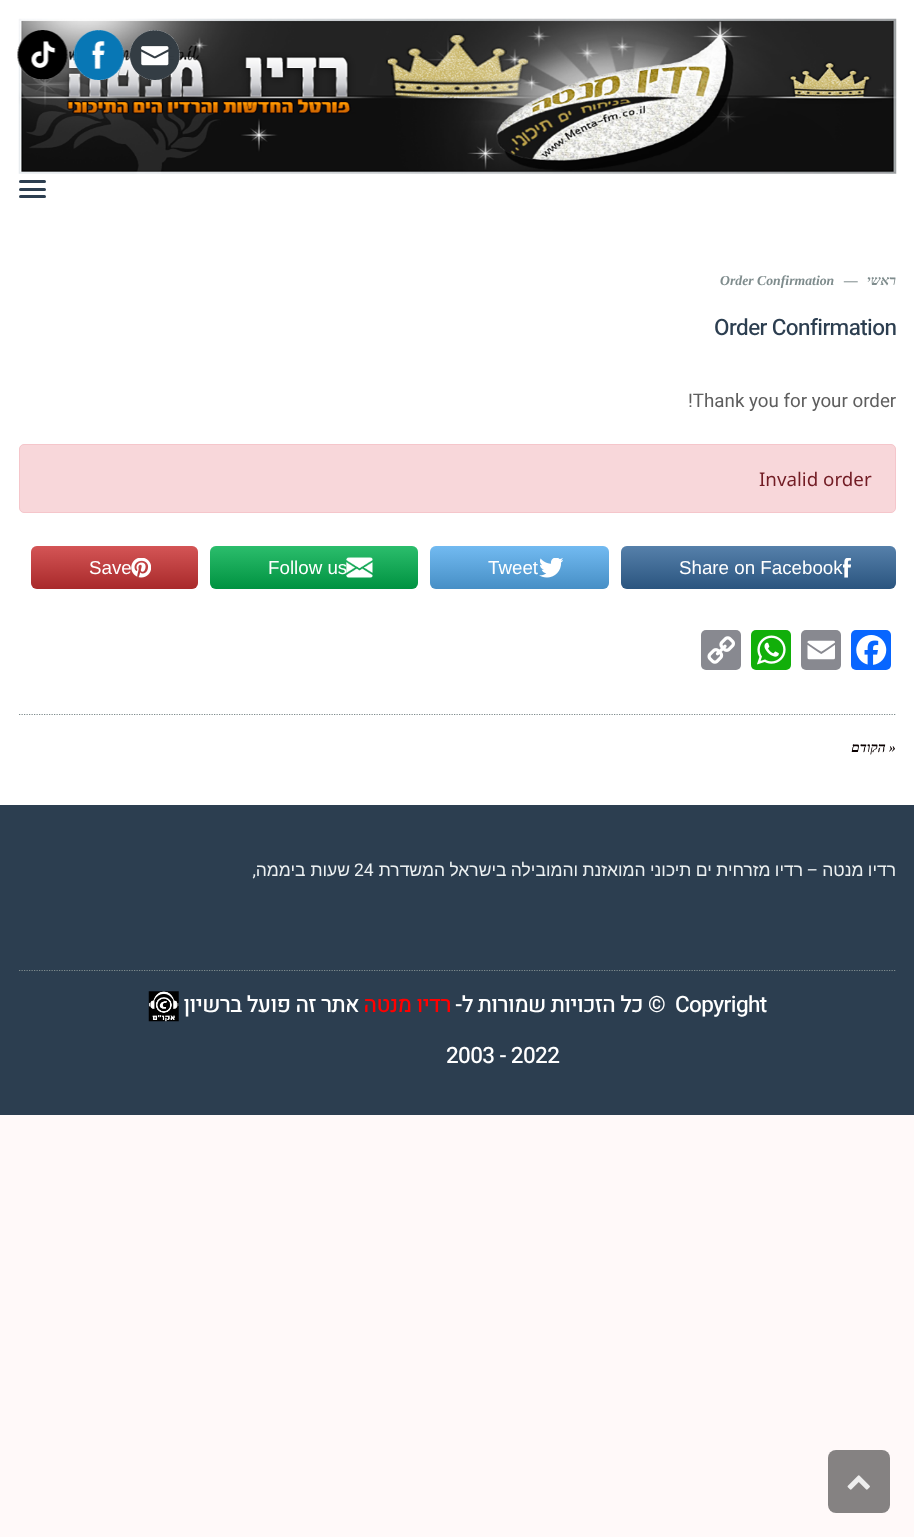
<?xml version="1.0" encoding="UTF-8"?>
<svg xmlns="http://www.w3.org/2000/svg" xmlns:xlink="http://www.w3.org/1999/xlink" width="914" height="1537">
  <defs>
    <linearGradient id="g1" gradientUnits="userSpaceOnUse" x1="759" y1="589" x2="759" y2="546"><stop offset="0" stop-color="#000000" stop-opacity="0.17" /><stop offset="1" stop-color="#ffffff" stop-opacity="0.17" /></linearGradient>
    <linearGradient id="g2" gradientUnits="userSpaceOnUse" x1="519" y1="589" x2="519" y2="546"><stop offset="0" stop-color="#000000" stop-opacity="0.17" /><stop offset="1" stop-color="#ffffff" stop-opacity="0.17" /></linearGradient>
    <linearGradient id="g3" gradientUnits="userSpaceOnUse" x1="314" y1="589" x2="314" y2="546"><stop offset="0" stop-color="#000000" stop-opacity="0.17" /><stop offset="1" stop-color="#ffffff" stop-opacity="0.17" /></linearGradient>
    <linearGradient id="g4" gradientUnits="userSpaceOnUse" x1="114" y1="589" x2="114" y2="546"><stop offset="0" stop-color="#000000" stop-opacity="0.17" /><stop offset="1" stop-color="#ffffff" stop-opacity="0.17" /></linearGradient>
    <clipPath id="clip1"><rect y="970" width="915" height="145" /></clipPath>
  </defs>
  <rect width="100%" height="100%" fill="#fff9f9" />
  <rect width="914" height="805" fill="#ffffff" />
  <image x="18" y="18" width="879" height="156" xlink:href="image4.png" />
  <image x="130" y="30" width="50" height="50" xlink:href="image1.png" />
  <image x="73" y="30" width="51" height="50" xlink:href="image2.png" />
  <image x="17" y="30" width="51" height="50" xlink:href="image3.png" />
  <rect x="19" y="180" width="27" height="3" rx="1.5" fill="#2c3e50" />
  <rect x="19" y="188" width="27" height="3" rx="1.5" fill="#2c3e50" />
  <rect x="19" y="195" width="27" height="3" rx="1.5" fill="#2c3e50" />
  <rect x="19.5" y="444.5" width="876" height="68" rx="4.5" fill="#f8d7da" stroke="#f5c6cb" />
  <rect x="621" y="546" width="275" height="43" rx="6" fill="#336699" />
  <rect x="621" y="546" width="275" height="43" rx="6" fill="url(#g1)" />
  <image x="843" y="558" width="8" height="20" xlink:href="image5.png" />
  <rect x="430" y="546" width="179" height="43" rx="6" fill="#55acee" />
  <rect x="430" y="546" width="179" height="43" rx="6" fill="url(#g2)" />
  <image x="539" y="558" width="24" height="20" xlink:href="image6.png" />
  <rect x="210" y="546" width="208" height="43" rx="6" fill="#00b04e" />
  <rect x="210" y="546" width="208" height="43" rx="6" fill="url(#g3)" />
  <image x="346" y="557" width="27" height="21" xlink:href="image7.png" />
  <rect x="31" y="546" width="167" height="43" rx="6" fill="#cb3233" />
  <rect x="31" y="546" width="167" height="43" rx="6" fill="url(#g4)" />
  <image x="131" y="558" width="20" height="20" xlink:href="image8.png" />
  <rect x="851" y="630" width="40" height="40" rx="5" fill="#0866ff" />
  <image x="856" y="635" width="31" height="30" xlink:href="image9.png" />
  <rect x="801" y="630" width="40" height="40" rx="5" fill="#888990" />
  <image x="807" y="640" width="28" height="20" xlink:href="image10.png" />
  <rect x="751" y="630" width="40" height="40" rx="5" fill="#12af0a" />
  <image x="757" y="635" width="29" height="30" xlink:href="image11.png" />
  <rect x="701" y="630" width="40" height="40" rx="5" fill="#888990" />
  <image x="707" y="636" width="28" height="28" xlink:href="image12.png" />
  <path d="M 19 714.5 h 877" fill="none" stroke="#7f8c8d" stroke-width="1.2" stroke-dasharray="1.25 1.25" />
  <rect y="805" width="914" height="310" fill="#2c3e50" />
  <g clip-path="url(#clip1)">
    <path d="M 19 970.5 h 877" fill="none" stroke="#7f8c8d" stroke-width="1.2" stroke-dasharray="1.25 1.25" />
  </g>
  <image x="148" y="991" width="31" height="31" xlink:href="image13.png" />
  <rect x="828" y="1450" width="62" height="63" rx="8" fill="#858282" />
  <image x="847" y="1475" width="23" height="15" xlink:href="image14.png" />
  <text x="896" y="285" style="font-family: Tinos; font-size: 13.75px; font-weight: bold; font-style: italic; direction: rtl; fill: #7f8c8d">ראשי</text>
  <text x="844" y="285" style="font-family: Tinos; font-size: 13.75px; font-weight: bold; font-style: italic; fill: #7f8c8d">—</text>
  <text x="720" y="285" style="font-family: Tinos; font-size: 13.75px; font-weight: bold; font-style: italic; fill: #7f8c8d">Order Confirmation</text>
  <text x="714" y="335" style="font-family: Heebo; font-size: 22.5px; font-weight: 500; letter-spacing: -0.6px; fill: #2c3e50">Order Confirmation</text>
  <text x="688" y="407" style="font-family: Roboto; font-size: 18.75px; fill: #5e5e5e">!Thank you for your order</text>
  <text x="759" y="486" style="font-family: Noto Sans; font-size: 18.75px; fill: #721c24">Invalid order</text>
  <text x="679" y="574" style="font-family: Liberation Sans; font-size: 18.75px; fill: #ffffff">Share on Facebook</text>
  <text x="488" y="574" style="font-family: Liberation Sans; font-size: 18.75px; fill: #ffffff">Tweet</text>
  <text x="268" y="574" style="font-family: Liberation Sans; font-size: 18.75px; fill: #ffffff">Follow us</text>
  <text x="89" y="574" style="font-family: Liberation Sans; font-size: 18.75px; fill: #ffffff">Save</text>
  <text x="896" y="752" style="font-family: Tinos; font-size: 13.75px; font-weight: bold; font-style: italic; direction: rtl; fill: #0a0000">« הקודם</text>
  <text x="896" y="876" word-spacing="-0.5" style="font-family: Liberation Sans; font-size: 17.5px; direction: rtl; fill: #ecf0f1">רדיו מנטה</text>
  <text x="818" y="876" style="font-family: Roboto; font-size: 17.5px; direction: rtl; fill: #ecf0f1">–</text>
  <text x="803" y="876" word-spacing="-0.5" style="font-family: Liberation Sans; font-size: 17.5px; direction: rtl; fill: #ecf0f1">רדיו מזרחית ים תיכוני המואזנת והמובילה בישראל המשדרת</text>
  <text x="354" y="876" style="font-family: Roboto; font-size: 17.5px; fill: #ecf0f1">24</text>
  <text x="350" y="876" style="font-family: Liberation Sans; font-size: 17.5px; direction: rtl; fill: #ecf0f1">שעות ביממה</text>
  <text x="256" y="876" style="font-family: Roboto; font-size: 17.5px; direction: rtl; fill: #ecf0f1">,</text>
  <text x="675" y="1012" style="font-family: Heebo; font-size: 22.5px; font-weight: 500; letter-spacing: -0.6px; fill: #ffffff">Copyright</text>
  <text x="665" y="1012" style="font-family: Heebo; font-size: 22.5px; font-weight: 500; letter-spacing: -0.6px; direction: rtl; fill: #ffffff">© כל הזכויות שמורות ל-</text>
  <text x="451" y="1012" style="font-family: Heebo; font-size: 22.5px; font-weight: 500; letter-spacing: -0.6px; direction: rtl; fill: #ff0000">רדיו מנטה</text>
  <text x="359" y="1012" style="font-family: Heebo; font-size: 22.5px; font-weight: 500; letter-spacing: -0.6px; direction: rtl; fill: #ffffff">אתר זה פועל ברשיון</text>
  <text x="446" y="1063" style="font-family: Heebo; font-size: 22.5px; font-weight: 500; letter-spacing: -0.6px; fill: #ffffff">2003 - 2022</text>
</svg>
